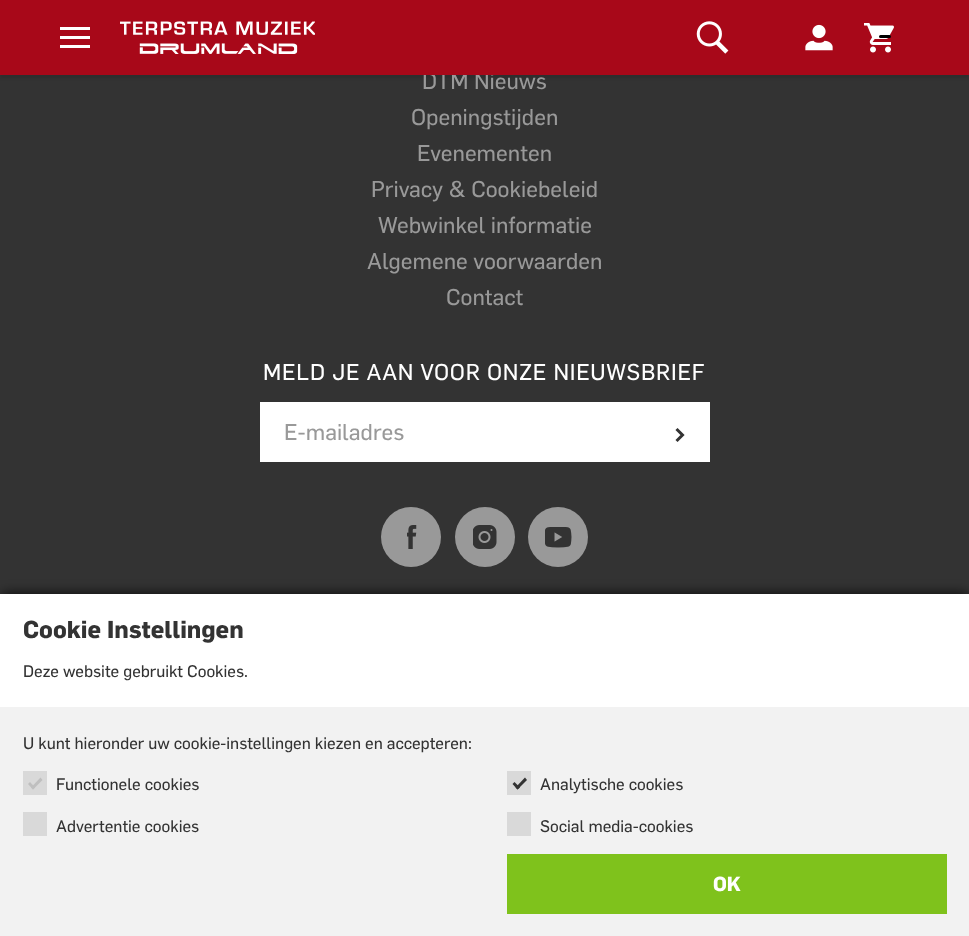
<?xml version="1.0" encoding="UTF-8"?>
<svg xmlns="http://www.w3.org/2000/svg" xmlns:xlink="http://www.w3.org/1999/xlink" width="969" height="936">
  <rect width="100%" height="100%" fill="#333333" />
  <rect y="3" width="969" height="75" fill="#000000" fill-opacity="0.1" filter="blur(1.5px)" />
  <rect x="260" y="402" width="450" height="60" fill="#ffffff" />
  <path d="M 676.5 429 l 6 6 l -6 6" fill="none" stroke="#333333" stroke-width="3" />
  <circle cx="411" cy="537" r="30" fill="#999999" />
  <image x="407" y="525" width="10" height="24" xlink:href="image5.png" />
  <circle cx="485" cy="537" r="30" fill="#999999" />
  <image x="473" y="525" width="24" height="24" xlink:href="image6.png" />
  <circle cx="558" cy="537" r="30" fill="#999999" />
  <image x="545" y="527" width="27" height="21" xlink:href="image7.png" />
  <rect x="2" y="593" width="966" height="339" fill="#000000" fill-opacity="0.75" filter="blur(6px)" />
  <rect y="594" width="969" height="113" fill="#ffffff" />
  <rect y="707" width="969" height="229" fill="#f2f2f2" />
  <rect x="23" y="771" width="24" height="24" fill="#d9d9d9" />
  <path d="M 31 787.5 l 9.5 -10 l 2 2.5 l -9.5 9.5 z" fill="#bfbfbf" />
  <path d="M 28 784 l 2 -2 l 5 5.5 l -2 2 z" fill="#bfbfbf" />
  <rect x="507" y="771" width="24" height="24" fill="#d9d9d9" />
  <path d="M 515.5 787.5 l 9.5 -10 l 2 2.5 l -9.5 9.5 z" fill="#333333" />
  <path d="M 512.5 784 l 2 -2 l 5.5 5.5 l -2.5 2 z" fill="#333333" />
  <rect x="23" y="812" width="24" height="24" fill="#d9d9d9" />
  <rect x="507" y="812" width="24" height="24" fill="#d9d9d9" />
  <rect x="507" y="854" width="440" height="60" fill="#7fc21c" />
  <text x="422" y="89" style="font-family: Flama; font-size: 22.5px; font-weight: 600; fill: #999999">DTM Nieuws</text>
  <rect width="969" height="75" fill="#a80819" />
  <image x="864" y="23" width="30" height="30" xlink:href="image4.png" />
  <rect x="879" y="35" width="12" height="3" rx="1.5" fill="#000000" />
  <rect x="60" y="45" width="30" height="3" fill="#ffffff" />
  <rect x="60" y="36" width="30" height="3" fill="#ffffff" />
  <rect x="60" y="27" width="30" height="3" fill="#ffffff" />
  <image x="805" y="24" width="28" height="27" xlink:href="image3.png" />
  <image x="696" y="21" width="33" height="33" xlink:href="image2.png" />
  <image x="120" y="21" width="195" height="33" xlink:href="image1.png" />
  <text x="411" y="125" style="font-family: Flama; font-size: 22.5px; font-weight: 600; fill: #999999">Openingstijden</text>
  <text x="417" y="161" style="font-family: Flama; font-size: 22.5px; font-weight: 600; fill: #999999">Evenementen</text>
  <text x="371" y="197" style="font-family: Flama; font-size: 22.5px; font-weight: 600; fill: #999999">Privacy &amp; Cookiebeleid</text>
  <text x="378" y="233" style="font-family: Flama; font-size: 22.5px; font-weight: 600; fill: #999999">Webwinkel informatie</text>
  <text x="367" y="269" style="font-family: Flama; font-size: 22.5px; font-weight: 600; fill: #999999">Algemene voorwaarden</text>
  <text x="446" y="305" style="font-family: Flama; font-size: 22.5px; font-weight: 600; fill: #999999">Contact</text>
  <text x="263" y="380" style="font-family: Flama; font-size: 22.5px; font-weight: 600; letter-spacing: 0.75px; fill: #ffffff">MELD JE AAN VOOR ONZE NIEUWSBRIEF</text>
  <text x="284" y="440" style="font-family: Flama; font-size: 22.5px; font-weight: 600; fill: #999999">E-mailadres</text>
  <text x="23" y="638" style="font-family: Flama; font-size: 24px; font-weight: bold; fill: #333333">Cookie Instellingen</text>
  <text x="23" y="677" style="font-family: Flama; font-size: 16.5px; font-weight: 600; fill: #333333">Deze website gebruikt Cookies.</text>
  <text x="23" y="749" style="font-family: Flama; font-size: 16.5px; font-weight: 600; fill: #333333">U kunt hieronder uw cookie-instellingen kiezen en accepteren:</text>
  <text x="56" y="790" style="font-family: Flama; font-size: 16.5px; font-weight: 600; fill: #333333">Functionele cookies</text>
  <text x="540" y="790" style="font-family: Flama; font-size: 16.5px; font-weight: 600; fill: #333333">Analytische cookies</text>
  <text x="56" y="832" style="font-family: Flama; font-size: 16.5px; font-weight: 600; fill: #333333">Advertentie cookies</text>
  <text x="540" y="832" style="font-family: Flama; font-size: 16.5px; font-weight: 600; fill: #333333">Social media-cookies</text>
  <text x="713" y="891" style="font-family: Flama; font-size: 20px; font-weight: bold; fill: #ffffff">OK</text>
</svg>
